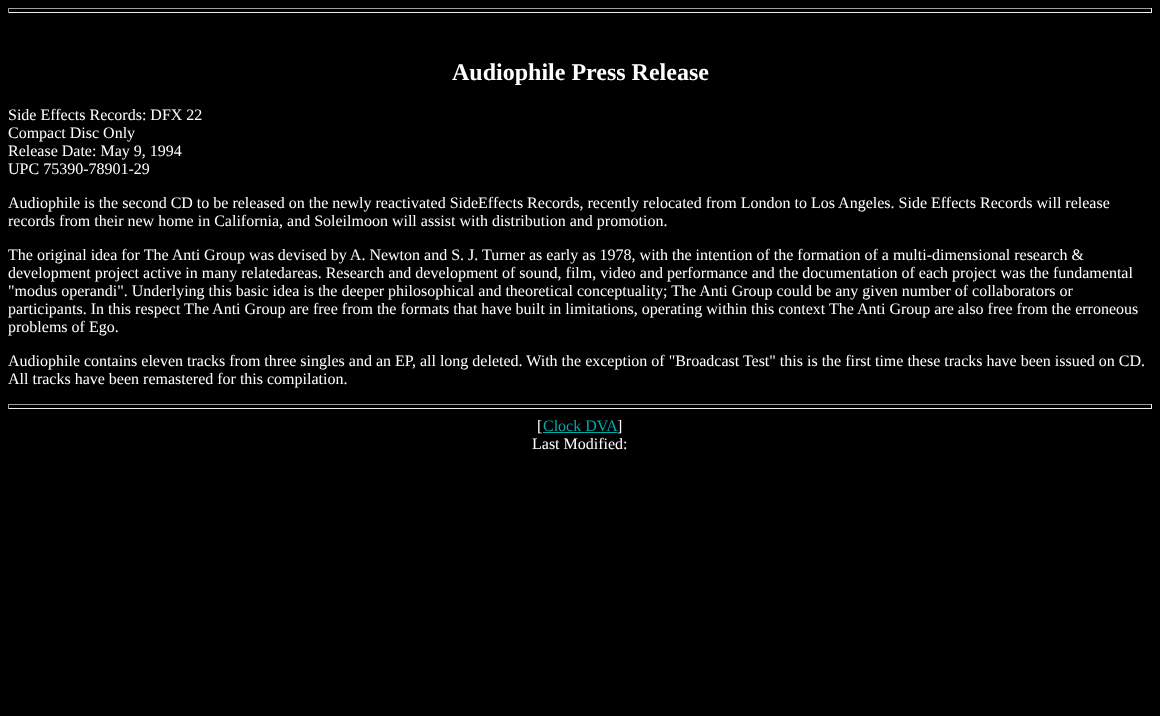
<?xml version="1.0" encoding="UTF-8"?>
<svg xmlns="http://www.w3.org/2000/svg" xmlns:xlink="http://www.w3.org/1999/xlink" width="1160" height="716">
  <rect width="100%" height="100%" fill="#000000" />
  <rect x="8" y="8" width="1144" height="1" fill="#9f9f9f" />
  <rect x="1151" y="8" width="1" height="5" fill="#eeeeee" />
  <rect x="8" y="12" width="1144" height="1" fill="#eeeeee" />
  <rect x="8" y="8" width="1" height="5" fill="#9f9f9f" />
  <rect x="8" y="404" width="1144" height="1" fill="#9f9f9f" />
  <rect x="1151" y="404" width="1" height="5" fill="#eeeeee" />
  <rect x="8" y="408" width="1144" height="1" fill="#eeeeee" />
  <rect x="8" y="404" width="1" height="5" fill="#9f9f9f" />
  <rect x="543" y="432" width="74" height="1" fill="#00aaaa" />
  <text x="452" y="80" style="font-family: Liberation Serif; font-size: 24px; font-weight: bold; fill: #ffffff">Audiophile Press Release</text>
  <text x="8" y="120" style="font-family: Liberation Serif; font-size: 16px; fill: #ffffff">Side Effects Records: DFX 22</text>
  <text x="8" y="138" style="font-family: Liberation Serif; font-size: 16px; fill: #ffffff">Compact Disc Only</text>
  <text x="8" y="156" style="font-family: Liberation Serif; font-size: 16px; fill: #ffffff">Release Date: May 9, 1994</text>
  <text x="8" y="174" style="font-family: Liberation Serif; font-size: 16px; fill: #ffffff">UPC 75390-78901-29</text>
  <text x="8" y="208" style="font-family: Liberation Serif; font-size: 16px; fill: #ffffff">Audiophile is the second CD to be released on the newly reactivated SideEffects Records, recently relocated from London to Los Angeles. Side Effects Records will release</text>
  <text x="8" y="226" style="font-family: Liberation Serif; font-size: 16px; fill: #ffffff">records from their new home in California, and Soleilmoon will assist with distribution and promotion.</text>
  <text x="8" y="260" style="font-family: Liberation Serif; font-size: 16px; fill: #ffffff">The original idea for The Anti Group was devised by A. Newton and S. J. Turner as early as 1978, with the intention of the formation of a multi-dimensional research &amp;</text>
  <text x="8" y="278" style="font-family: Liberation Serif; font-size: 16px; fill: #ffffff">development project active in many relatedareas. Research and development of sound, film, video and performance and the documentation of each project was the fundamental</text>
  <text x="8" y="296" style="font-family: Liberation Serif; font-size: 16px; fill: #ffffff">"modus operandi". Underlying this basic idea is the deeper philosophical and theoretical conceptuality; The Anti Group could be any given number of collaborators or</text>
  <text x="8" y="314" style="font-family: Liberation Serif; font-size: 16px; fill: #ffffff">participants. In this respect The Anti Group are free from the formats that have built in limitations, operating within this context The Anti Group are also free from the erroneous</text>
  <text x="8" y="332" style="font-family: Liberation Serif; font-size: 16px; fill: #ffffff">problems of Ego.</text>
  <text x="8" y="366" style="font-family: Liberation Serif; font-size: 16px; fill: #ffffff">Audiophile contains eleven tracks from three singles and an EP, all long deleted. With the exception of "Broadcast Test" this is the first time these tracks have been issued on CD.</text>
  <text x="8" y="384" style="font-family: Liberation Serif; font-size: 16px; fill: #ffffff">All tracks have been remastered for this compilation.</text>
  <text x="537" y="431" style="font-family: Liberation Serif; font-size: 16px; fill: #ffffff">[</text>
  <text x="543" y="431" style="font-family: Liberation Serif; font-size: 16px; fill: #00aaaa">Clock DVA</text>
  <text x="617" y="431" style="font-family: Liberation Serif; font-size: 16px; fill: #ffffff">]</text>
  <text x="532" y="449" style="font-family: Liberation Serif; font-size: 16px; fill: #ffffff">Last Modified:</text>
</svg>
